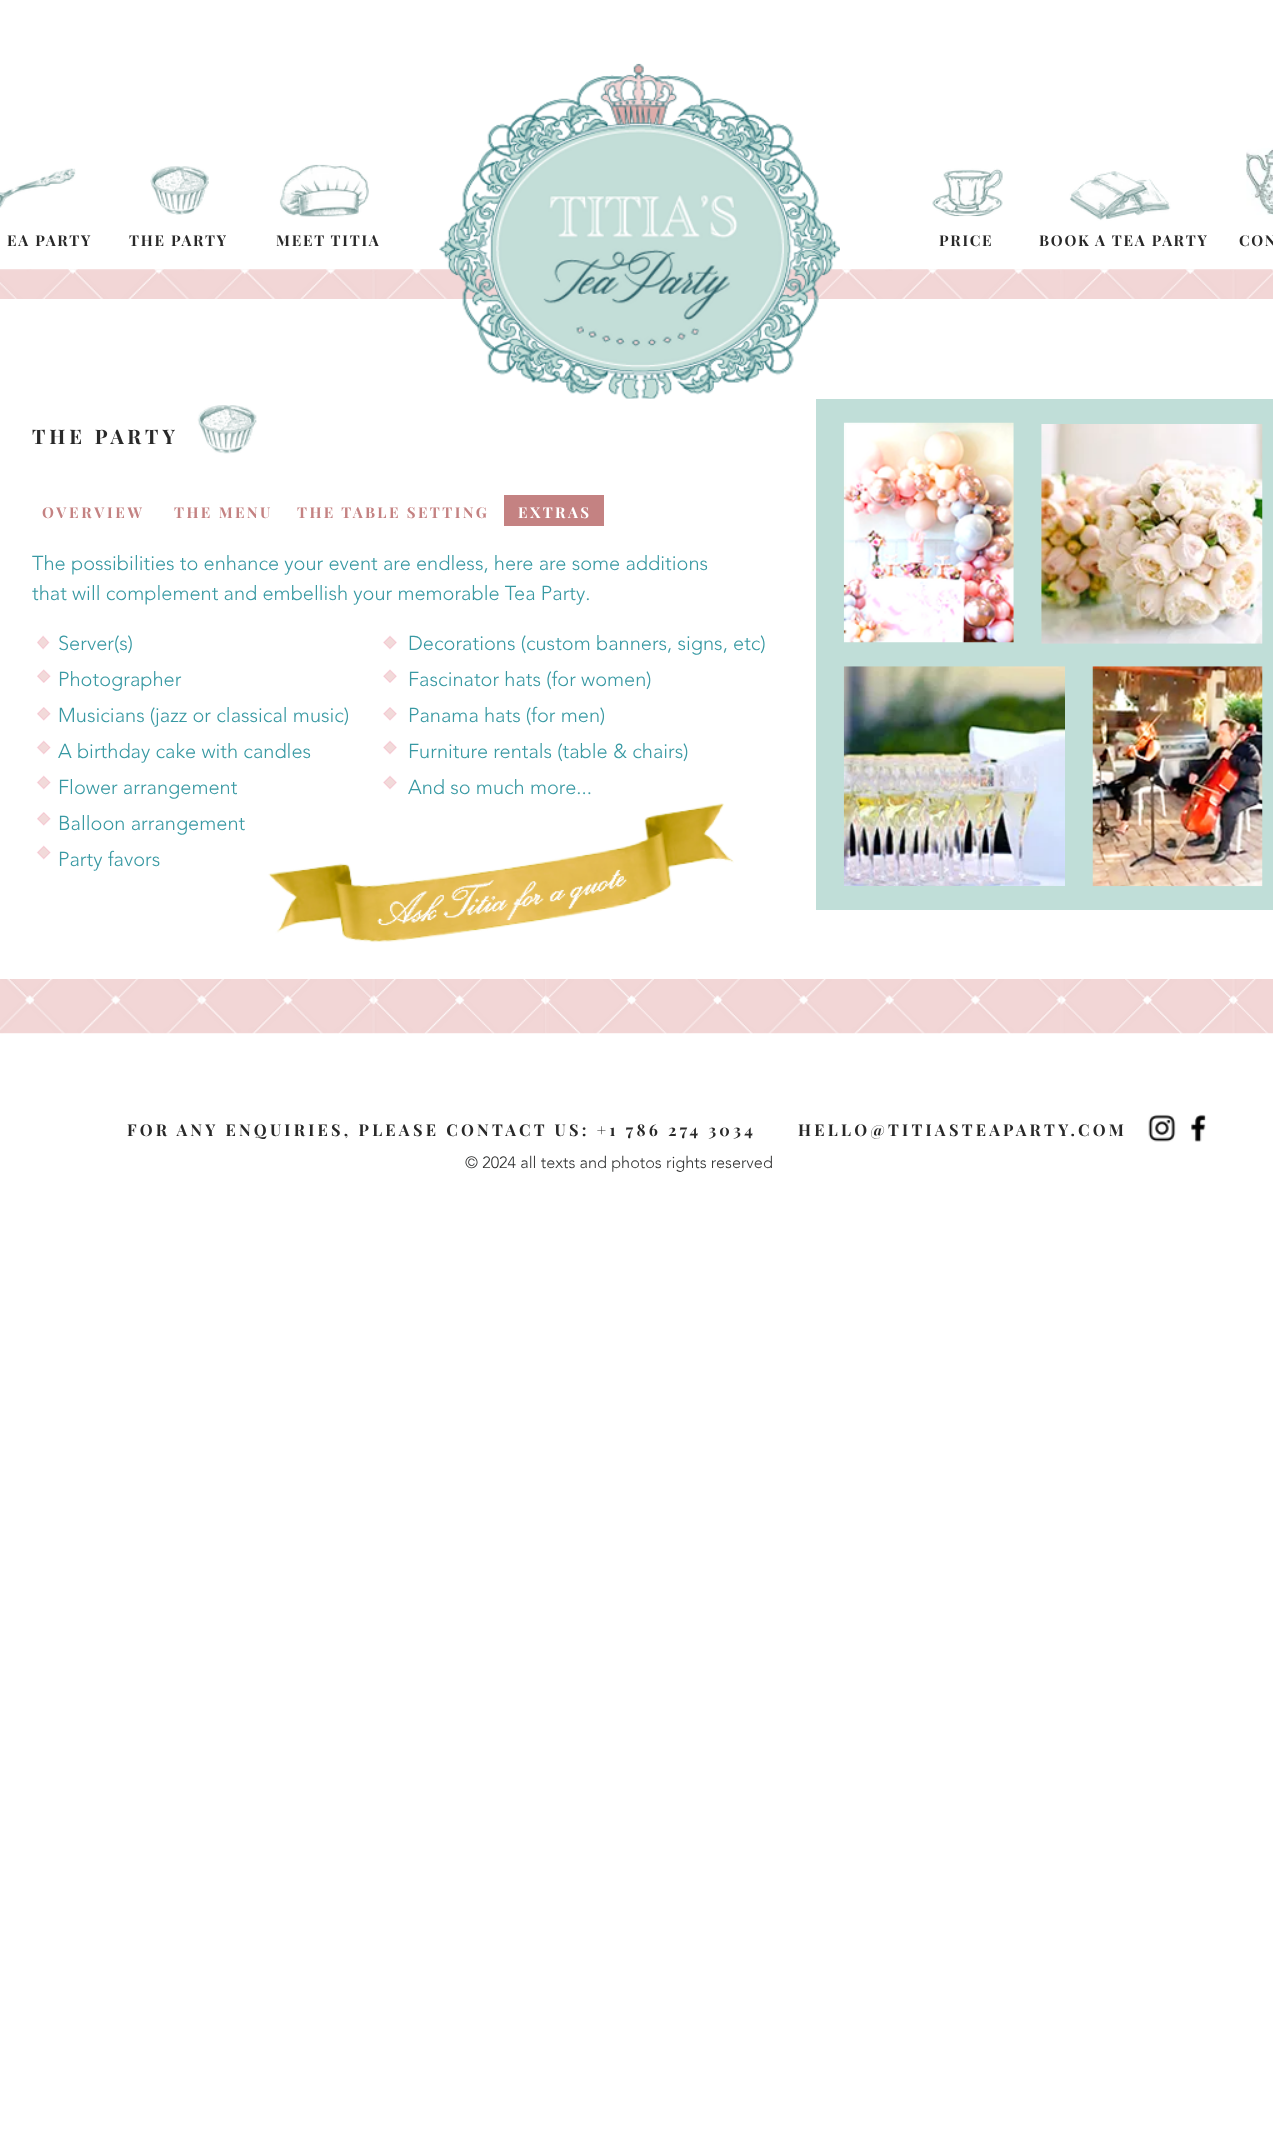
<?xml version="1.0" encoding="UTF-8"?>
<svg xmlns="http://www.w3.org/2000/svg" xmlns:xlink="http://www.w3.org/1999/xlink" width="1273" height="2130">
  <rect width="100%" height="100%" fill="#ffffff" />
  <image x="0" y="168" width="76" height="40" xlink:href="image1.png" />
  <image x="150" y="166" width="59" height="49" xlink:href="image2.png" />
  <image x="279" y="164" width="90" height="53" xlink:href="image3.png" />
  <image x="0" y="269" width="1273" height="765" xlink:href="image8.png" />
  <rect y="299" width="1273" height="680" fill="#ffffff" />
  <image x="439" y="63" width="401" height="336" xlink:href="image4.png" />
  <image x="932" y="168" width="71" height="49" xlink:href="image5.png" />
  <image x="1069" y="171" width="102" height="50" xlink:href="image6.png" />
  <image x="1246" y="148" width="27" height="67" xlink:href="image7.png" />
  <image x="197" y="405" width="60" height="49" xlink:href="image9.png" />
  <rect x="816" y="399" width="457" height="511" fill="#c0ded8" />
  <image x="843" y="422" width="171" height="221" xlink:href="image10.png" />
  <image x="1041" y="424" width="222" height="220" xlink:href="image11.png" />
  <image x="843" y="666" width="222" height="220" xlink:href="image12.png" />
  <image x="1092" y="666" width="171" height="221" xlink:href="image13.png" />
  <rect x="504" y="495" width="100" height="31" fill="#c48282" />
  <image x="37" y="635" width="13" height="15" xlink:href="image14.png" />
  <image x="383" y="635" width="14" height="15" xlink:href="image15.png" />
  <image x="37" y="669" width="14" height="14" xlink:href="image16.png" />
  <image x="383" y="669" width="14" height="14" xlink:href="image17.png" />
  <image x="37" y="707" width="14" height="14" xlink:href="image18.png" />
  <image x="383" y="707" width="14" height="14" xlink:href="image19.png" />
  <image x="36" y="740" width="15" height="15" xlink:href="image20.png" />
  <image x="383" y="740" width="14" height="15" xlink:href="image15.png" />
  <image x="36" y="775" width="15" height="15" xlink:href="image20.png" />
  <image x="383" y="775" width="14" height="15" xlink:href="image15.png" />
  <image x="37" y="812" width="14" height="14" xlink:href="image18.png" />
  <image x="268" y="803" width="466" height="140" xlink:href="image21.png" />
  <image x="36" y="845" width="15" height="15" xlink:href="image20.png" />
  <image x="1148" y="1114" width="28" height="28" xlink:href="image22.png" />
  <image x="1191" y="1114" width="15" height="28" xlink:href="image23.png" />
  <text x="7" y="246" style="font-family: Playfair Display; font-size: 15px; font-weight: bold; letter-spacing: 1.75px; fill: #292929">EA PARTY</text>
  <text x="129" y="246" style="font-family: Playfair Display; font-size: 15px; font-weight: bold; letter-spacing: 1.75px; fill: #292929">THE PARTY</text>
  <text x="276" y="246" style="font-family: Playfair Display; font-size: 15px; font-weight: bold; letter-spacing: 1.75px; fill: #292929">MEET TITIA</text>
  <text x="939" y="246" style="font-family: Playfair Display; font-size: 15px; font-weight: bold; letter-spacing: 1.75px; fill: #292929">PRICE</text>
  <text x="1039" y="246" style="font-family: Playfair Display; font-size: 15px; font-weight: bold; letter-spacing: 1.75px; fill: #292929">BOOK A TEA PARTY</text>
  <text x="1239" y="246" style="font-family: Playfair Display; font-size: 15px; font-weight: bold; letter-spacing: 1.75px; fill: #292929">CON</text>
  <text x="32" y="444" style="font-family: Playfair Display; font-size: 20px; font-weight: bold; letter-spacing: 4px; fill: #292929">THE PARTY</text>
  <text x="42" y="518" style="font-family: Playfair Display; font-size: 15px; font-weight: bold; letter-spacing: 2.75px; fill: #c48282">OVERVIEW</text>
  <text x="174" y="518" style="font-family: Playfair Display; font-size: 15px; font-weight: bold; letter-spacing: 2.4px; fill: #c48282">THE MENU</text>
  <text x="297" y="518" style="font-family: Playfair Display; font-size: 15px; font-weight: bold; letter-spacing: 2.4px; fill: #c48282">THE TABLE SETTING</text>
  <text x="518" y="518" style="font-family: Playfair Display; font-size: 15px; font-weight: bold; letter-spacing: 2.4px; fill: #ffffff">EXTRAS</text>
  <text x="32" y="570" style="font-family: 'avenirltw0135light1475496'; font-size: 20px; font-weight: 300; fill: #3899a3">The possibilities to enhance your event are endless, here are some additions</text>
  <text x="32" y="600" style="font-family: 'avenirltw0135light1475496'; font-size: 20px; font-weight: 300; fill: #3899a3">that will complement and embellish your memorable Tea Party.</text>
  <text x="58" y="650" style="font-family: 'avenirltw0135light1475496'; font-size: 20px; font-weight: 300; fill: #3899a3">Server(s)</text>
  <text x="58" y="686" style="font-family: 'avenirltw0135light1475496'; font-size: 20px; font-weight: 300; fill: #3899a3">Photographer</text>
  <text x="58" y="722" style="font-family: 'avenirltw0135light1475496'; font-size: 20px; font-weight: 300; fill: #3899a3">Musicians (jazz or classical music)</text>
  <text x="58" y="758" style="font-family: 'avenirltw0135light1475496'; font-size: 20px; font-weight: 300; fill: #3899a3">A birthday cake with candles</text>
  <text x="58" y="794" style="font-family: 'avenirltw0135light1475496'; font-size: 20px; font-weight: 300; fill: #3899a3">Flower arrangement</text>
  <text x="58" y="830" style="font-family: 'avenirltw0135light1475496'; font-size: 20px; font-weight: 300; fill: #3899a3">Balloon arrangement</text>
  <text x="58" y="866" style="font-family: 'avenirltw0135light1475496'; font-size: 20px; font-weight: 300; fill: #3899a3">Party favors</text>
  <text x="408" y="650" style="font-family: 'avenirltw0135light1475496'; font-size: 20px; font-weight: 300; fill: #3899a3">Decorations (custom banners, signs, etc)</text>
  <text x="408" y="686" style="font-family: 'avenirltw0135light1475496'; font-size: 20px; font-weight: 300; fill: #3899a3">Fascinator hats (for women)</text>
  <text x="408" y="722" style="font-family: 'avenirltw0135light1475496'; font-size: 20px; font-weight: 300; fill: #3899a3">Panama hats (for men)</text>
  <text x="408" y="758" style="font-family: 'avenirltw0135light1475496'; font-size: 20px; font-weight: 300; fill: #3899a3">Furniture rentals (table &amp; chairs)</text>
  <text x="408" y="794" style="font-family: 'avenirltw0135light1475496'; font-size: 20px; font-weight: 300; fill: #3899a3">And so much more...</text>
  <text x="127" y="1136" style="font-family: Playfair Display; font-size: 16.25px; font-weight: bold; letter-spacing: 3.25px; fill: #292929">FOR ANY ENQUIRIES, PLEASE CONTACT US: +1 786 274 3034</text>
  <text x="798" y="1136" style="font-family: Playfair Display; font-size: 16.25px; font-weight: bold; letter-spacing: 3.25px; fill: #292929">HELLO@TITIASTEAPARTY.COM</text>
  <text x="465" y="1168" style="font-family: 'avenirltw0135light1475496'; font-size: 16.25px; font-weight: 300; fill: #303131">© 2024 all texts and photos rights reserved</text>
</svg>
